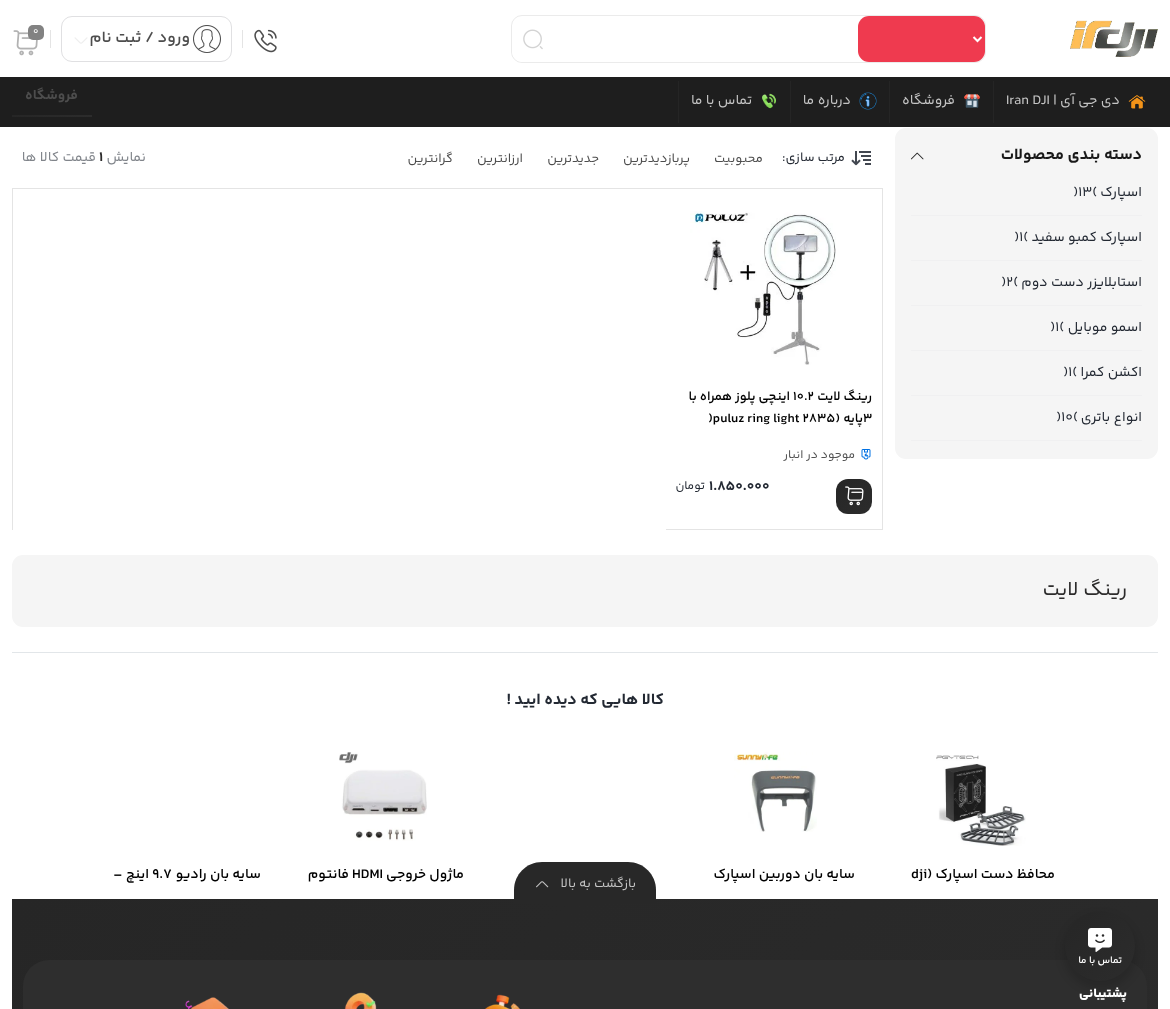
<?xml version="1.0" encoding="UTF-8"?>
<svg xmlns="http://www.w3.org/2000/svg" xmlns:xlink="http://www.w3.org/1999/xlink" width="1170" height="1009">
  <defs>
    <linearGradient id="g1" gradientUnits="userSpaceOnUse" x1="32" y1="96" x2="73" y2="137"><stop offset="0" stop-color="#262626" /><stop offset="1" stop-color="#2c2c2c" /></linearGradient>
    <linearGradient id="g2" gradientUnits="userSpaceOnUse" x1="836" y1="479" x2="872" y2="514"><stop offset="0" stop-color="#262626" /><stop offset="1" stop-color="#2c2c2c" /></linearGradient>
    <linearGradient id="g3" gradientUnits="userSpaceOnUse" x1="157" y1="754" x2="1013" y2="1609"><stop offset="0" stop-color="#262626" /><stop offset="1" stop-color="#2c2c2c" /></linearGradient>
    <linearGradient id="g4" gradientUnits="userSpaceOnUse" x1="1065" y1="911" x2="1135" y2="981"><stop offset="0" stop-color="#262626" /><stop offset="1" stop-color="#2c2c2c" /></linearGradient>
  </defs>
  <rect width="100%" height="100%" fill="#ffffff" />
  <image x="1070" y="20" width="88" height="37" xlink:href="image1.png" />
  <rect x="511.5" y="15.5" width="474" height="47" rx="10.5" fill="none" stroke="#ebebeb" />
  <rect x="858" y="16" width="127" height="46" rx="11" fill="#ef3a4f" />
  <path d="M 973.5 37 l 4 4 l 4 -4" fill="none" stroke="#ffffff" stroke-width="2" />
  <rect x="512" y="17" width="41" height="45" rx="11" fill="#ffffff" />
  <image x="523" y="29" width="20" height="21" xlink:href="image2.png" />
  <image x="254" y="29" width="23" height="24" xlink:href="image3.png" />
  <rect x="242" y="30" width="1" height="18" fill="#e4e4e4" />
  <rect x="61.5" y="16.5" width="170" height="45" rx="10.5" fill="none" stroke="#e0e0e2" />
  <image x="193" y="25" width="28" height="28" xlink:href="image4.png" />
  <image x="74" y="37" width="14" height="7" xlink:href="image5.png" />
  <rect x="50" y="30" width="1" height="18" fill="#e4e4e4" />
  <image x="13" y="30" width="25" height="26" xlink:href="image6.png" />
  <rect x="28" y="25" width="16" height="15" rx="5" fill="#828282" />
  <rect y="77" width="1170" height="50" fill="#1e1e1e" />
  <rect x="993" y="81" width="1" height="42" fill="#252525" />
  <image x="1128" y="95" width="18" height="14" xlink:href="image7.png" />
  <rect x="889" y="81" width="1" height="42" fill="#252525" />
  <image x="964" y="94" width="16" height="14" xlink:href="image8.png" />
  <rect x="790" y="81" width="1" height="42" fill="#252525" />
  <image x="859" y="92" width="18" height="18" xlink:href="image9.png" />
  <rect x="678" y="81" width="1" height="42" fill="#252525" />
  <image x="762" y="93" width="14" height="16" xlink:href="image10.png" />
  <rect x="12" y="115" width="80" height="2" fill="url(#g1)" />
  <rect x="895" y="128" width="263" height="331" rx="11" fill="#f5f5f5" />
  <image x="911" y="152" width="13" height="8" xlink:href="image11.png" />
  <rect x="911" y="215" width="231" height="1" fill="#f0f0f1" />
  <rect x="911" y="260" width="231" height="1" fill="#f0f0f1" />
  <rect x="911" y="305" width="231" height="1" fill="#f0f0f1" />
  <rect x="911" y="350" width="231" height="1" fill="#f0f0f1" />
  <rect x="911" y="395" width="231" height="1" fill="#f0f0f1" />
  <rect x="911" y="440" width="231" height="1" fill="#f0f0f1" />
  <rect x="12" y="188" width="871" height="1" fill="#e4e4e4" />
  <image x="851" y="151" width="20" height="15" xlink:href="image12.png" />
  <rect x="12" y="189" width="1" height="341" fill="#e4e4e4" />
  <rect x="882" y="189" width="1" height="341" fill="#e4e4e4" />
  <rect x="666" y="529" width="217" height="1" fill="#e4e4e4" />
  <image x="690" y="211" width="146" height="154" xlink:href="image13.png" />
  <image x="861" y="449" width="10" height="11" xlink:href="image14.png" />
  <rect x="836" y="479" width="36" height="35" rx="12" fill="url(#g2)" />
  <image x="845" y="486" width="19" height="20" xlink:href="image15.png" />
  <rect x="12" y="555" width="1146" height="72" rx="11" fill="#f5f5f5" />
  <rect x="12" y="652" width="1146" height="1" fill="#e2e6e9" />
  <image x="936" y="755" width="90" height="91" xlink:href="image16.png" />
  <image x="734" y="752" width="83" height="80" xlink:href="image17.png" />
  <image x="339" y="752" width="88" height="89" xlink:href="image18.png" />
  <rect x="12" y="899" width="1146" height="110" fill="url(#g3)" />
  <path d="M 542 862 h 86 c 15.5 0 28 12.5 28 28 v 13 h -142 v -13 c 0 -15.5 12.5 -28 28 -28 z" fill="#282828" />
  <image x="536" y="881" width="13" height="7" xlink:href="image19.png" />
  <rect x="23" y="960" width="1124" height="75" rx="26" fill="#2e2e2e" />
  <image x="485" y="994" width="35" height="15" xlink:href="image20.png" />
  <image x="344" y="992" width="33" height="17" xlink:href="image21.png" />
  <image x="185" y="997" width="44" height="12" xlink:href="image22.png" />
  <rect x="1063" y="915" width="74" height="74" rx="37" fill="#000000" fill-opacity="0.14" filter="blur(4px)" />
  <circle cx="1100" cy="946" r="35" fill="url(#g4)" />
  <image x="1088" y="928" width="24" height="24" xlink:href="image23.png" />
  <text x="190" y="42" style="font-family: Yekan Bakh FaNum; font-size: 16px; font-weight: 600; direction: rtl; fill: #4d4d4d">ورود / ثبت نام</text>
  <text x="33" y="34" style="font-family: Yekan Bakh FaNum; font-size: 10px; fill: #ffffff">0</text>
  <text x="1120" y="104" style="font-family: Yekan Bakh FaNum; font-size: 14px; direction: rtl; fill: #c4c4c4">دی جی آی |</text>
  <text x="1006" y="104" style="font-family: Yekan Bakh FaNum; font-size: 14px; fill: #c4c4c4">Iran DJI</text>
  <text x="955" y="104" style="font-family: Yekan Bakh FaNum; font-size: 14px; direction: rtl; fill: #c4c4c4">فروشگاه</text>
  <text x="851" y="104" style="font-family: Yekan Bakh FaNum; font-size: 14px; direction: rtl; fill: #c4c4c4">درباره ما</text>
  <text x="752" y="104" style="font-family: Yekan Bakh FaNum; font-size: 14px; direction: rtl; fill: #c4c4c4">تماس با ما</text>
  <text x="78" y="99" style="font-family: Yekan Bakh FaNum; font-size: 14px; font-weight: bold; direction: rtl; fill: #4d4d4d">فروشگاه</text>
  <text x="1142" y="159" style="font-family: Yekan Bakh FaNum; font-size: 16px; font-weight: bold; direction: rtl; fill: #191919">دسته بندی محصولات</text>
  <text x="1142" y="196" style="font-family: Yekan Bakh FaNum; font-size: 14px; direction: rtl; fill: #232933">اسپارک</text>
  <text x="1073" y="196" style="font-family: Yekan Bakh FaNum; font-size: 14px; fill: #232933">)13(</text>
  <text x="1142" y="241" style="font-family: Yekan Bakh FaNum; font-size: 14px; direction: rtl; fill: #232933">اسپارک کمبو سفید</text>
  <text x="1014" y="241" style="font-family: Yekan Bakh FaNum; font-size: 14px; fill: #232933">)1(</text>
  <text x="1142" y="286" style="font-family: Yekan Bakh FaNum; font-size: 14px; direction: rtl; fill: #232933">استابلایزر دست دوم</text>
  <text x="1001" y="286" style="font-family: Yekan Bakh FaNum; font-size: 14px; fill: #232933">)2(</text>
  <text x="1142" y="331" style="font-family: Yekan Bakh FaNum; font-size: 14px; direction: rtl; fill: #232933">اسمو موبایل</text>
  <text x="1050" y="331" style="font-family: Yekan Bakh FaNum; font-size: 14px; fill: #232933">)1(</text>
  <text x="1142" y="376" style="font-family: Yekan Bakh FaNum; font-size: 14px; direction: rtl; fill: #232933">اکشن کمرا</text>
  <text x="1063" y="376" style="font-family: Yekan Bakh FaNum; font-size: 14px; fill: #232933">)1(</text>
  <text x="1142" y="421" style="font-family: Yekan Bakh FaNum; font-size: 14px; direction: rtl; fill: #232933">انواع باتری</text>
  <text x="1056" y="421" style="font-family: Yekan Bakh FaNum; font-size: 14px; fill: #232933">)10(</text>
  <text x="845" y="161" style="font-family: Yekan Bakh FaNum; font-size: 13px; direction: rtl; fill: #232933">مرتب سازی:</text>
  <text x="763" y="162" style="font-family: Yekan Bakh FaNum; font-size: 13px; direction: rtl; fill: #4d4d4d">محبوبیت</text>
  <text x="690" y="162" style="font-family: Yekan Bakh FaNum; font-size: 13px; direction: rtl; fill: #4d4d4d">پربازدیدترین</text>
  <text x="599" y="162" style="font-family: Yekan Bakh FaNum; font-size: 13px; direction: rtl; fill: #4d4d4d">جدیدترین</text>
  <text x="523" y="162" style="font-family: Yekan Bakh FaNum; font-size: 13px; direction: rtl; fill: #4d4d4d">ارزانترین</text>
  <text x="453" y="162" style="font-family: Yekan Bakh FaNum; font-size: 13px; direction: rtl; fill: #4d4d4d">گرانترین</text>
  <text x="146" y="161" style="font-family: Yekan Bakh FaNum; font-size: 14px; direction: rtl; fill: #81858b">نمایش</text>
  <text x="99" y="161" style="font-family: Yekan Bakh FaNum; font-size: 14px; font-weight: bold; fill: #2c2b2b">1</text>
  <text x="96" y="161" style="font-family: Yekan Bakh FaNum; font-size: 14px; direction: rtl; fill: #81858b">قیمت کالا ها</text>
  <text x="872" y="400" style="font-family: Yekan Bakh FaNum; font-size: 13px; font-weight: 600; direction: rtl; fill: #000000">رینگ لایت</text>
  <text x="793" y="400" style="font-family: Yekan Bakh FaNum; font-size: 13px; font-weight: 600; fill: #000000">10.2</text>
  <text x="790" y="400" style="font-family: Yekan Bakh FaNum; font-size: 13px; font-weight: 600; direction: rtl; fill: #000000">اینچی پلوز همراه با</text>
  <text x="863" y="422" style="font-family: Yekan Bakh FaNum; font-size: 13px; font-weight: 600; fill: #000000">3</text>
  <text x="863" y="422" style="font-family: Yekan Bakh FaNum; font-size: 13px; font-weight: 600; direction: rtl; fill: #000000">پایه (</text>
  <text x="708" y="422" style="font-family: Yekan Bakh FaNum; font-size: 13px; font-weight: 600; fill: #000000">)puluz ring light 2835</text>
  <text x="855" y="458" style="font-family: Yekan Bakh FaNum; font-size: 12px; direction: rtl; fill: #535353">موجود در انبار</text>
  <text x="709" y="490" style="font-family: Yekan Bakh FaNum; font-size: 14px; font-weight: bold; fill: #232933">1.850.000</text>
  <text x="705" y="489" style="font-family: Yekan Bakh FaNum; font-size: 12px; direction: rtl; fill: #232933">تومان</text>
  <text x="1127" y="595" style="font-family: Yekan Bakh FaNum; font-size: 20px; direction: rtl; fill: #2c2b2b">رینگ لایت</text>
  <text x="664" y="704" style="font-family: Yekan Bakh FaNum; font-size: 16px; font-weight: bold; direction: rtl; fill: #232933">کالا هایی که دیده ایید !</text>
  <text x="1055" y="878" style="font-family: Yekan Bakh FaNum; font-size: 14px; font-weight: 600; direction: rtl; fill: #000000">محافظ دست اسپارک (</text>
  <text x="911" y="878" style="font-family: Yekan Bakh FaNum; font-size: 14px; font-weight: 600; fill: #000000">dji</text>
  <text x="855" y="878" style="font-family: Yekan Bakh FaNum; font-size: 14px; font-weight: 600; direction: rtl; fill: #000000">سایه بان دوربین اسپارک</text>
  <text x="464" y="878" style="font-family: Yekan Bakh FaNum; font-size: 14px; font-weight: 600; direction: rtl; fill: #000000">ماژول خروجی</text>
  <text x="352" y="878" style="font-family: Yekan Bakh FaNum; font-size: 14px; font-weight: 600; fill: #000000">HDMI</text>
  <text x="349" y="878" style="font-family: Yekan Bakh FaNum; font-size: 14px; font-weight: 600; direction: rtl; fill: #000000">فانتوم</text>
  <text x="261" y="878" style="font-family: Yekan Bakh FaNum; font-size: 14px; font-weight: 600; direction: rtl; fill: #000000">سایه بان رادیو</text>
  <text x="152" y="878" style="font-family: Yekan Bakh FaNum; font-size: 14px; font-weight: 600; fill: #000000">9.7</text>
  <text x="149" y="878" style="font-family: Yekan Bakh FaNum; font-size: 14px; font-weight: 600; direction: rtl; fill: #000000">اینچ –</text>
  <text x="636" y="887" style="font-family: Yekan Bakh FaNum; font-size: 13px; direction: rtl; fill: #c4c4c4">بازگشت به بالا</text>
  <text x="1127" y="997" style="font-family: Yekan Bakh FaNum; font-size: 13px; font-weight: 800; direction: rtl; fill: #ffffff">پشتیبانی</text>
  <text x="1122" y="963" style="font-family: Yekan Bakh FaNum; font-size: 10px; font-weight: 600; direction: rtl; fill: #ffffff">تماس با ما</text>
</svg>
